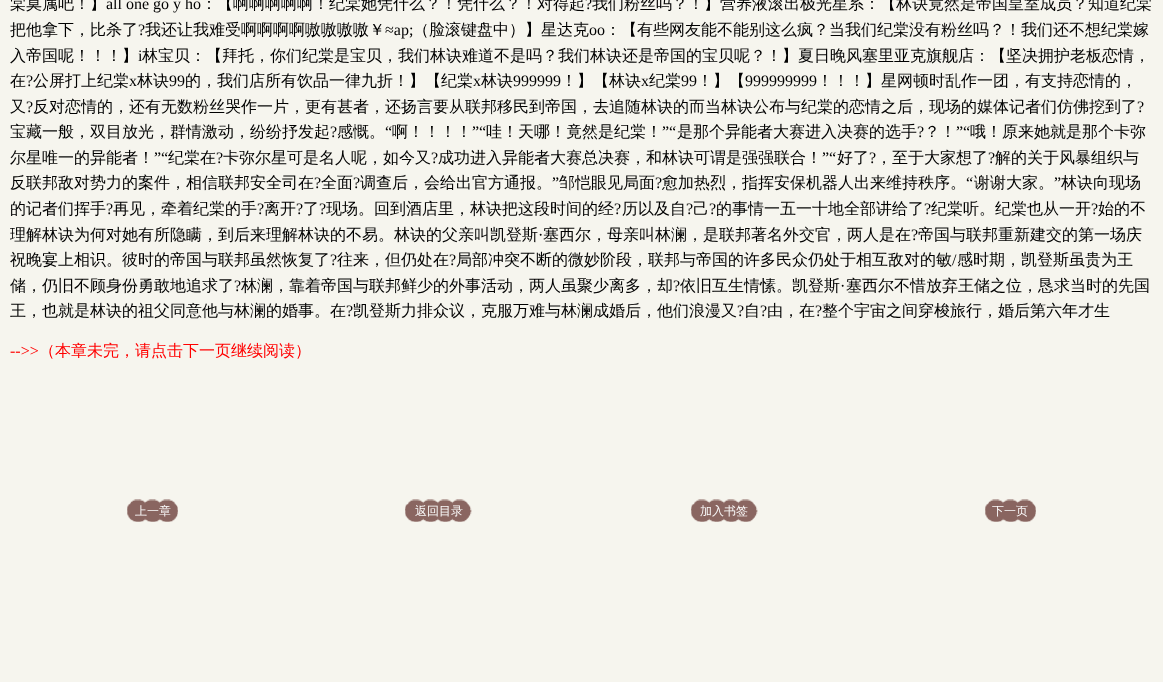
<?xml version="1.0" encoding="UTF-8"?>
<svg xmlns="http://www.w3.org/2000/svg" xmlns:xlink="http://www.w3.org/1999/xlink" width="1163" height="682">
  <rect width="100%" height="100%" fill="#f6f5ee" />
  <image x="127" y="499" width="51" height="23" xlink:href="image1.png" />
  <image x="405" y="499" width="67" height="23" xlink:href="image2.png" />
  <image x="691" y="499" width="67" height="23" xlink:href="image2.png" />
  <image x="985" y="499" width="51" height="23" xlink:href="image1.png" />
  <text x="10" y="9" style="font-family: WenQuanYi Zen Hei; font-size: 16px; font-weight: 500; fill: #000000">棠莫属吧！】</text>
  <text x="106" y="9" style="font-family: Liberation Serif; font-size: 16px; fill: #000000">all one go y ho</text>
  <text x="201" y="9" style="font-family: WenQuanYi Zen Hei; font-size: 16px; font-weight: 500; fill: #000000">：【啊啊啊啊啊！纪棠她凭什么？！凭什么？！对得起</text>
  <text x="585" y="9" style="font-family: Liberation Serif; font-size: 16px; fill: #000000">?</text>
  <text x="592" y="9" style="font-family: WenQuanYi Zen Hei; font-size: 16px; font-weight: 500; fill: #000000">我们粉丝吗？！】营养液滚出极光星系：【林诀竟然是帝国皇室成员？知道纪棠</text>
  <text x="10" y="35" style="font-family: WenQuanYi Zen Hei; font-size: 16px; font-weight: 500; fill: #000000">把他拿下，比杀了</text>
  <text x="138" y="35" style="font-family: Liberation Serif; font-size: 16px; fill: #000000">?</text>
  <text x="145" y="35" style="font-family: WenQuanYi Zen Hei; font-size: 16px; font-weight: 500; fill: #000000">我还让我难受啊啊啊啊嗷嗷嗷嗷￥</text>
  <text x="385" y="35" style="font-family: Liberation Serif; font-size: 16px; fill: #000000">≈ap;</text>
  <text x="413" y="35" style="font-family: WenQuanYi Zen Hei; font-size: 16px; font-weight: 500; fill: #000000">（脸滚键盘中）】星达克</text>
  <text x="589" y="35" style="font-family: Liberation Serif; font-size: 16px; fill: #000000">oo</text>
  <text x="605" y="35" style="font-family: WenQuanYi Zen Hei; font-size: 16px; font-weight: 500; fill: #000000">：【有些网友能不能别这么疯？当我们纪棠没有粉丝吗？！我们还不想纪棠嫁</text>
  <text x="10" y="61" style="font-family: WenQuanYi Zen Hei; font-size: 16px; font-weight: 500; fill: #000000">入帝国呢！！！】</text>
  <text x="138" y="61" style="font-family: Liberation Serif; font-size: 16px; fill: #000000">i</text>
  <text x="142" y="61" style="font-family: WenQuanYi Zen Hei; font-size: 16px; font-weight: 500; fill: #000000">林宝贝：【拜托，你们纪棠是宝贝，我们林诀难道不是吗？我们林诀还是帝国的宝贝呢？！】夏日晚风塞里亚克旗舰店：【坚决拥护老板恋情，</text>
  <text x="10" y="86" style="font-family: WenQuanYi Zen Hei; font-size: 16px; font-weight: 500; fill: #000000">在</text>
  <text x="26" y="86" style="font-family: Liberation Serif; font-size: 16px; fill: #000000">?</text>
  <text x="33" y="86" style="font-family: WenQuanYi Zen Hei; font-size: 16px; font-weight: 500; fill: #000000">公屏打上纪棠</text>
  <text x="129" y="86" style="font-family: Liberation Serif; font-size: 16px; fill: #000000">x</text>
  <text x="137" y="86" style="font-family: WenQuanYi Zen Hei; font-size: 16px; font-weight: 500; fill: #000000">林诀</text>
  <text x="169" y="86" style="font-family: Liberation Serif; font-size: 16px; fill: #000000">99</text>
  <text x="185" y="86" style="font-family: WenQuanYi Zen Hei; font-size: 16px; font-weight: 500; fill: #000000">的，我们店所有饮品一律九折！】【纪棠</text>
  <text x="473" y="86" style="font-family: Liberation Serif; font-size: 16px; fill: #000000">x</text>
  <text x="481" y="86" style="font-family: WenQuanYi Zen Hei; font-size: 16px; font-weight: 500; fill: #000000">林诀</text>
  <text x="513" y="86" style="font-family: Liberation Serif; font-size: 16px; fill: #000000">999999</text>
  <text x="561" y="86" style="font-family: WenQuanYi Zen Hei; font-size: 16px; font-weight: 500; fill: #000000">！】【林诀</text>
  <text x="641" y="86" style="font-family: Liberation Serif; font-size: 16px; fill: #000000">x</text>
  <text x="649" y="86" style="font-family: WenQuanYi Zen Hei; font-size: 16px; font-weight: 500; fill: #000000">纪棠</text>
  <text x="681" y="86" style="font-family: Liberation Serif; font-size: 16px; fill: #000000">99</text>
  <text x="697" y="86" style="font-family: WenQuanYi Zen Hei; font-size: 16px; font-weight: 500; fill: #000000">！】【</text>
  <text x="745" y="86" style="font-family: Liberation Serif; font-size: 16px; fill: #000000">999999999</text>
  <text x="817" y="86" style="font-family: WenQuanYi Zen Hei; font-size: 16px; font-weight: 500; fill: #000000">！！！】星网顿时乱作一团，有支持恋情的，</text>
  <text x="10" y="112" style="font-family: WenQuanYi Zen Hei; font-size: 16px; font-weight: 500; fill: #000000">又</text>
  <text x="26" y="112" style="font-family: Liberation Serif; font-size: 16px; fill: #000000">?</text>
  <text x="33" y="112" style="font-family: WenQuanYi Zen Hei; font-size: 16px; font-weight: 500; fill: #000000">反对恋情的，还有无数粉丝哭作一片，更有甚者，还扬言要从联邦移民到帝国，去追随林诀的而当林诀公布与纪棠的恋情之后，现场的媒体记者们仿佛挖到了</text>
  <text x="1137" y="112" style="font-family: Liberation Serif; font-size: 16px; fill: #000000">?</text>
  <text x="10" y="137" style="font-family: WenQuanYi Zen Hei; font-size: 16px; font-weight: 500; fill: #000000">宝藏一般，双目放光，群情激动，纷纷抒发起</text>
  <text x="330" y="137" style="font-family: Liberation Serif; font-size: 16px; fill: #000000">?</text>
  <text x="337" y="137" style="font-family: WenQuanYi Zen Hei; font-size: 16px; font-weight: 500; fill: #000000">感慨。</text>
  <text x="385" y="137" style="font-family: Liberation Serif; font-size: 16px; fill: #000000">“</text>
  <text x="392" y="137" style="font-family: WenQuanYi Zen Hei; font-size: 16px; font-weight: 500; fill: #000000">啊！！！！</text>
  <text x="472" y="137" style="font-family: Liberation Serif; font-size: 16px; fill: #000000">”“</text>
  <text x="486" y="137" style="font-family: WenQuanYi Zen Hei; font-size: 16px; font-weight: 500; fill: #000000">哇！天哪！竟然是纪棠！</text>
  <text x="662" y="137" style="font-family: Liberation Serif; font-size: 16px; fill: #000000">”“</text>
  <text x="677" y="137" style="font-family: WenQuanYi Zen Hei; font-size: 16px; font-weight: 500; fill: #000000">是那个异能者大赛进入决赛的选手</text>
  <text x="917" y="137" style="font-family: Liberation Serif; font-size: 16px; fill: #000000">?</text>
  <text x="924" y="137" style="font-family: WenQuanYi Zen Hei; font-size: 16px; font-weight: 500; fill: #000000">？！</text>
  <text x="956" y="137" style="font-family: Liberation Serif; font-size: 16px; fill: #000000">”“</text>
  <text x="970" y="137" style="font-family: WenQuanYi Zen Hei; font-size: 16px; font-weight: 500; fill: #000000">哦！原来她就是那个卡弥</text>
  <text x="10" y="163" style="font-family: WenQuanYi Zen Hei; font-size: 16px; font-weight: 500; fill: #000000">尔星唯一的异能者！</text>
  <text x="154" y="163" style="font-family: Liberation Serif; font-size: 16px; fill: #000000">”“</text>
  <text x="168" y="163" style="font-family: WenQuanYi Zen Hei; font-size: 16px; font-weight: 500; fill: #000000">纪棠在</text>
  <text x="216" y="163" style="font-family: Liberation Serif; font-size: 16px; fill: #000000">?</text>
  <text x="223" y="163" style="font-family: WenQuanYi Zen Hei; font-size: 16px; font-weight: 500; fill: #000000">卡弥尔星可是名人呢，如今又</text>
  <text x="431" y="163" style="font-family: Liberation Serif; font-size: 16px; fill: #000000">?</text>
  <text x="438" y="163" style="font-family: WenQuanYi Zen Hei; font-size: 16px; font-weight: 500; fill: #000000">成功进入异能者大赛总决赛，和林诀可谓是强强联合！</text>
  <text x="822" y="163" style="font-family: Liberation Serif; font-size: 16px; fill: #000000">”“</text>
  <text x="837" y="163" style="font-family: WenQuanYi Zen Hei; font-size: 16px; font-weight: 500; fill: #000000">好了</text>
  <text x="869" y="163" style="font-family: Liberation Serif; font-size: 16px; fill: #000000">?</text>
  <text x="876" y="163" style="font-family: WenQuanYi Zen Hei; font-size: 16px; font-weight: 500; fill: #000000">，至于大家想了</text>
  <text x="988" y="163" style="font-family: Liberation Serif; font-size: 16px; fill: #000000">?</text>
  <text x="995" y="163" style="font-family: WenQuanYi Zen Hei; font-size: 16px; font-weight: 500; fill: #000000">解的关于风暴组织与</text>
  <text x="10" y="188" style="font-family: WenQuanYi Zen Hei; font-size: 16px; font-weight: 500; fill: #000000">反联邦敌对势力的案件，相信联邦安全司在</text>
  <text x="314" y="188" style="font-family: Liberation Serif; font-size: 16px; fill: #000000">?</text>
  <text x="321" y="188" style="font-family: WenQuanYi Zen Hei; font-size: 16px; font-weight: 500; fill: #000000">全面</text>
  <text x="353" y="188" style="font-family: Liberation Serif; font-size: 16px; fill: #000000">?</text>
  <text x="360" y="188" style="font-family: WenQuanYi Zen Hei; font-size: 16px; font-weight: 500; fill: #000000">调查后，会给出官方通报。</text>
  <text x="552" y="188" style="font-family: Liberation Serif; font-size: 16px; fill: #000000">”</text>
  <text x="559" y="188" style="font-family: WenQuanYi Zen Hei; font-size: 16px; font-weight: 500; fill: #000000">邹恺眼见局面</text>
  <text x="655" y="188" style="font-family: Liberation Serif; font-size: 16px; fill: #000000">?</text>
  <text x="662" y="188" style="font-family: WenQuanYi Zen Hei; font-size: 16px; font-weight: 500; fill: #000000">愈加热烈，指挥安保机器人出来维持秩序。</text>
  <text x="966" y="188" style="font-family: Liberation Serif; font-size: 16px; fill: #000000">“</text>
  <text x="974" y="188" style="font-family: WenQuanYi Zen Hei; font-size: 16px; font-weight: 500; fill: #000000">谢谢大家。</text>
  <text x="1054" y="188" style="font-family: Liberation Serif; font-size: 16px; fill: #000000">”</text>
  <text x="1061" y="188" style="font-family: WenQuanYi Zen Hei; font-size: 16px; font-weight: 500; fill: #000000">林诀向现场</text>
  <text x="10" y="214" style="font-family: WenQuanYi Zen Hei; font-size: 16px; font-weight: 500; fill: #000000">的记者们挥手</text>
  <text x="106" y="214" style="font-family: Liberation Serif; font-size: 16px; fill: #000000">?</text>
  <text x="113" y="214" style="font-family: WenQuanYi Zen Hei; font-size: 16px; font-weight: 500; fill: #000000">再见，牵着纪棠的手</text>
  <text x="257" y="214" style="font-family: Liberation Serif; font-size: 16px; fill: #000000">?</text>
  <text x="264" y="214" style="font-family: WenQuanYi Zen Hei; font-size: 16px; font-weight: 500; fill: #000000">离开</text>
  <text x="296" y="214" style="font-family: Liberation Serif; font-size: 16px; fill: #000000">?</text>
  <text x="303" y="214" style="font-family: WenQuanYi Zen Hei; font-size: 16px; font-weight: 500; fill: #000000">了</text>
  <text x="319" y="214" style="font-family: Liberation Serif; font-size: 16px; fill: #000000">?</text>
  <text x="326" y="214" style="font-family: WenQuanYi Zen Hei; font-size: 16px; font-weight: 500; fill: #000000">现场。回到酒店里，林诀把这段时间的经</text>
  <text x="614" y="214" style="font-family: Liberation Serif; font-size: 16px; fill: #000000">?</text>
  <text x="622" y="214" style="font-family: WenQuanYi Zen Hei; font-size: 16px; font-weight: 500; fill: #000000">历以及自</text>
  <text x="686" y="214" style="font-family: Liberation Serif; font-size: 16px; fill: #000000">?</text>
  <text x="693" y="214" style="font-family: WenQuanYi Zen Hei; font-size: 16px; font-weight: 500; fill: #000000">己</text>
  <text x="709" y="214" style="font-family: Liberation Serif; font-size: 16px; fill: #000000">?</text>
  <text x="716" y="214" style="font-family: WenQuanYi Zen Hei; font-size: 16px; font-weight: 500; fill: #000000">的事情一五一十地全部讲给了</text>
  <text x="924" y="214" style="font-family: Liberation Serif; font-size: 16px; fill: #000000">?</text>
  <text x="931" y="214" style="font-family: WenQuanYi Zen Hei; font-size: 16px; font-weight: 500; fill: #000000">纪棠听。纪棠也从一开</text>
  <text x="1091" y="214" style="font-family: Liberation Serif; font-size: 16px; fill: #000000">?</text>
  <text x="1098" y="214" style="font-family: WenQuanYi Zen Hei; font-size: 16px; font-weight: 500; fill: #000000">始的不</text>
  <text x="10" y="240" style="font-family: WenQuanYi Zen Hei; font-size: 16px; font-weight: 500; fill: #000000">理解林诀为何对她有所隐瞒，到后来理解林诀的不易。林诀的父亲叫凯登斯</text>
  <text x="538" y="240" style="font-family: Liberation Serif; font-size: 16px; fill: #000000">·</text>
  <text x="543" y="240" style="font-family: WenQuanYi Zen Hei; font-size: 16px; font-weight: 500; fill: #000000">塞西尔，母亲叫林澜，是联邦著名外交官，两人是在</text>
  <text x="911" y="240" style="font-family: Liberation Serif; font-size: 16px; fill: #000000">?</text>
  <text x="918" y="240" style="font-family: WenQuanYi Zen Hei; font-size: 16px; font-weight: 500; fill: #000000">帝国与联邦重新建交的第一场庆</text>
  <text x="10" y="265" style="font-family: WenQuanYi Zen Hei; font-size: 16px; font-weight: 500; fill: #000000">祝晚宴上相识。彼时的帝国与联邦虽然恢复了</text>
  <text x="330" y="265" style="font-family: Liberation Serif; font-size: 16px; fill: #000000">?</text>
  <text x="337" y="265" style="font-family: WenQuanYi Zen Hei; font-size: 16px; font-weight: 500; fill: #000000">往来，但仍处在</text>
  <text x="449" y="265" style="font-family: Liberation Serif; font-size: 16px; fill: #000000">?</text>
  <text x="456" y="265" style="font-family: WenQuanYi Zen Hei; font-size: 16px; font-weight: 500; fill: #000000">局部冲突不断的微妙阶段，联邦与帝国的许多民众仍处于相互敌对的敏</text>
  <text x="952" y="265" style="font-family: Liberation Serif; font-size: 16px; fill: #000000">/</text>
  <text x="957" y="265" style="font-family: WenQuanYi Zen Hei; font-size: 16px; font-weight: 500; fill: #000000">感时期，凯登斯虽贵为王</text>
  <text x="10" y="291" style="font-family: WenQuanYi Zen Hei; font-size: 16px; font-weight: 500; fill: #000000">储，仍旧不顾身份勇敢地追求了</text>
  <text x="234" y="291" style="font-family: Liberation Serif; font-size: 16px; fill: #000000">?</text>
  <text x="241" y="291" style="font-family: WenQuanYi Zen Hei; font-size: 16px; font-weight: 500; fill: #000000">林澜，靠着帝国与联邦鲜少的外事活动，两人虽聚少离多，却</text>
  <text x="673" y="291" style="font-family: Liberation Serif; font-size: 16px; fill: #000000">?</text>
  <text x="680" y="291" style="font-family: WenQuanYi Zen Hei; font-size: 16px; font-weight: 500; fill: #000000">依旧互生情愫。凯登斯</text>
  <text x="840" y="291" style="font-family: Liberation Serif; font-size: 16px; fill: #000000">·</text>
  <text x="846" y="291" style="font-family: WenQuanYi Zen Hei; font-size: 16px; font-weight: 500; fill: #000000">塞西尔不惜放弃王储之位，恳求当时的先国</text>
  <text x="10" y="316" style="font-family: WenQuanYi Zen Hei; font-size: 16px; font-weight: 500; fill: #000000">王，也就是林诀的祖父同意他与林澜的婚事。在</text>
  <text x="346" y="316" style="font-family: Liberation Serif; font-size: 16px; fill: #000000">?</text>
  <text x="353" y="316" style="font-family: WenQuanYi Zen Hei; font-size: 16px; font-weight: 500; fill: #000000">凯登斯力排众议，克服万难与林澜成婚后，他们浪漫又</text>
  <text x="737" y="316" style="font-family: Liberation Serif; font-size: 16px; fill: #000000">?</text>
  <text x="744" y="316" style="font-family: WenQuanYi Zen Hei; font-size: 16px; font-weight: 500; fill: #000000">自</text>
  <text x="760" y="316" style="font-family: Liberation Serif; font-size: 16px; fill: #000000">?</text>
  <text x="767" y="316" style="font-family: WenQuanYi Zen Hei; font-size: 16px; font-weight: 500; fill: #000000">由，在</text>
  <text x="815" y="316" style="font-family: Liberation Serif; font-size: 16px; fill: #000000">?</text>
  <text x="822" y="316" style="font-family: WenQuanYi Zen Hei; font-size: 16px; font-weight: 500; fill: #000000">整个宇宙之间穿梭旅行，婚后第六年才生</text>
  <text x="10" y="356" style="font-family: Liberation Serif; font-size: 16px; fill: #ff0000">--&gt;&gt;</text>
  <text x="39" y="356" style="font-family: WenQuanYi Zen Hei; font-size: 16px; font-weight: 500; fill: #ff0000">（本章未完，请点击下一页继续阅读）</text>
  <text x="135" y="515" style="font-family: WenQuanYi Zen Hei; font-size: 12px; font-weight: 500; fill: #fcfcfc">上一章</text>
  <text x="415" y="515" style="font-family: WenQuanYi Zen Hei; font-size: 12px; font-weight: 500; fill: #fcfcfc">返回目录</text>
  <text x="700" y="515" style="font-family: WenQuanYi Zen Hei; font-size: 12px; font-weight: 500; fill: #fcfcfc">加入书签</text>
  <text x="992" y="515" style="font-family: WenQuanYi Zen Hei; font-size: 12px; font-weight: 500; fill: #fcfcfc">下一页</text>
</svg>
